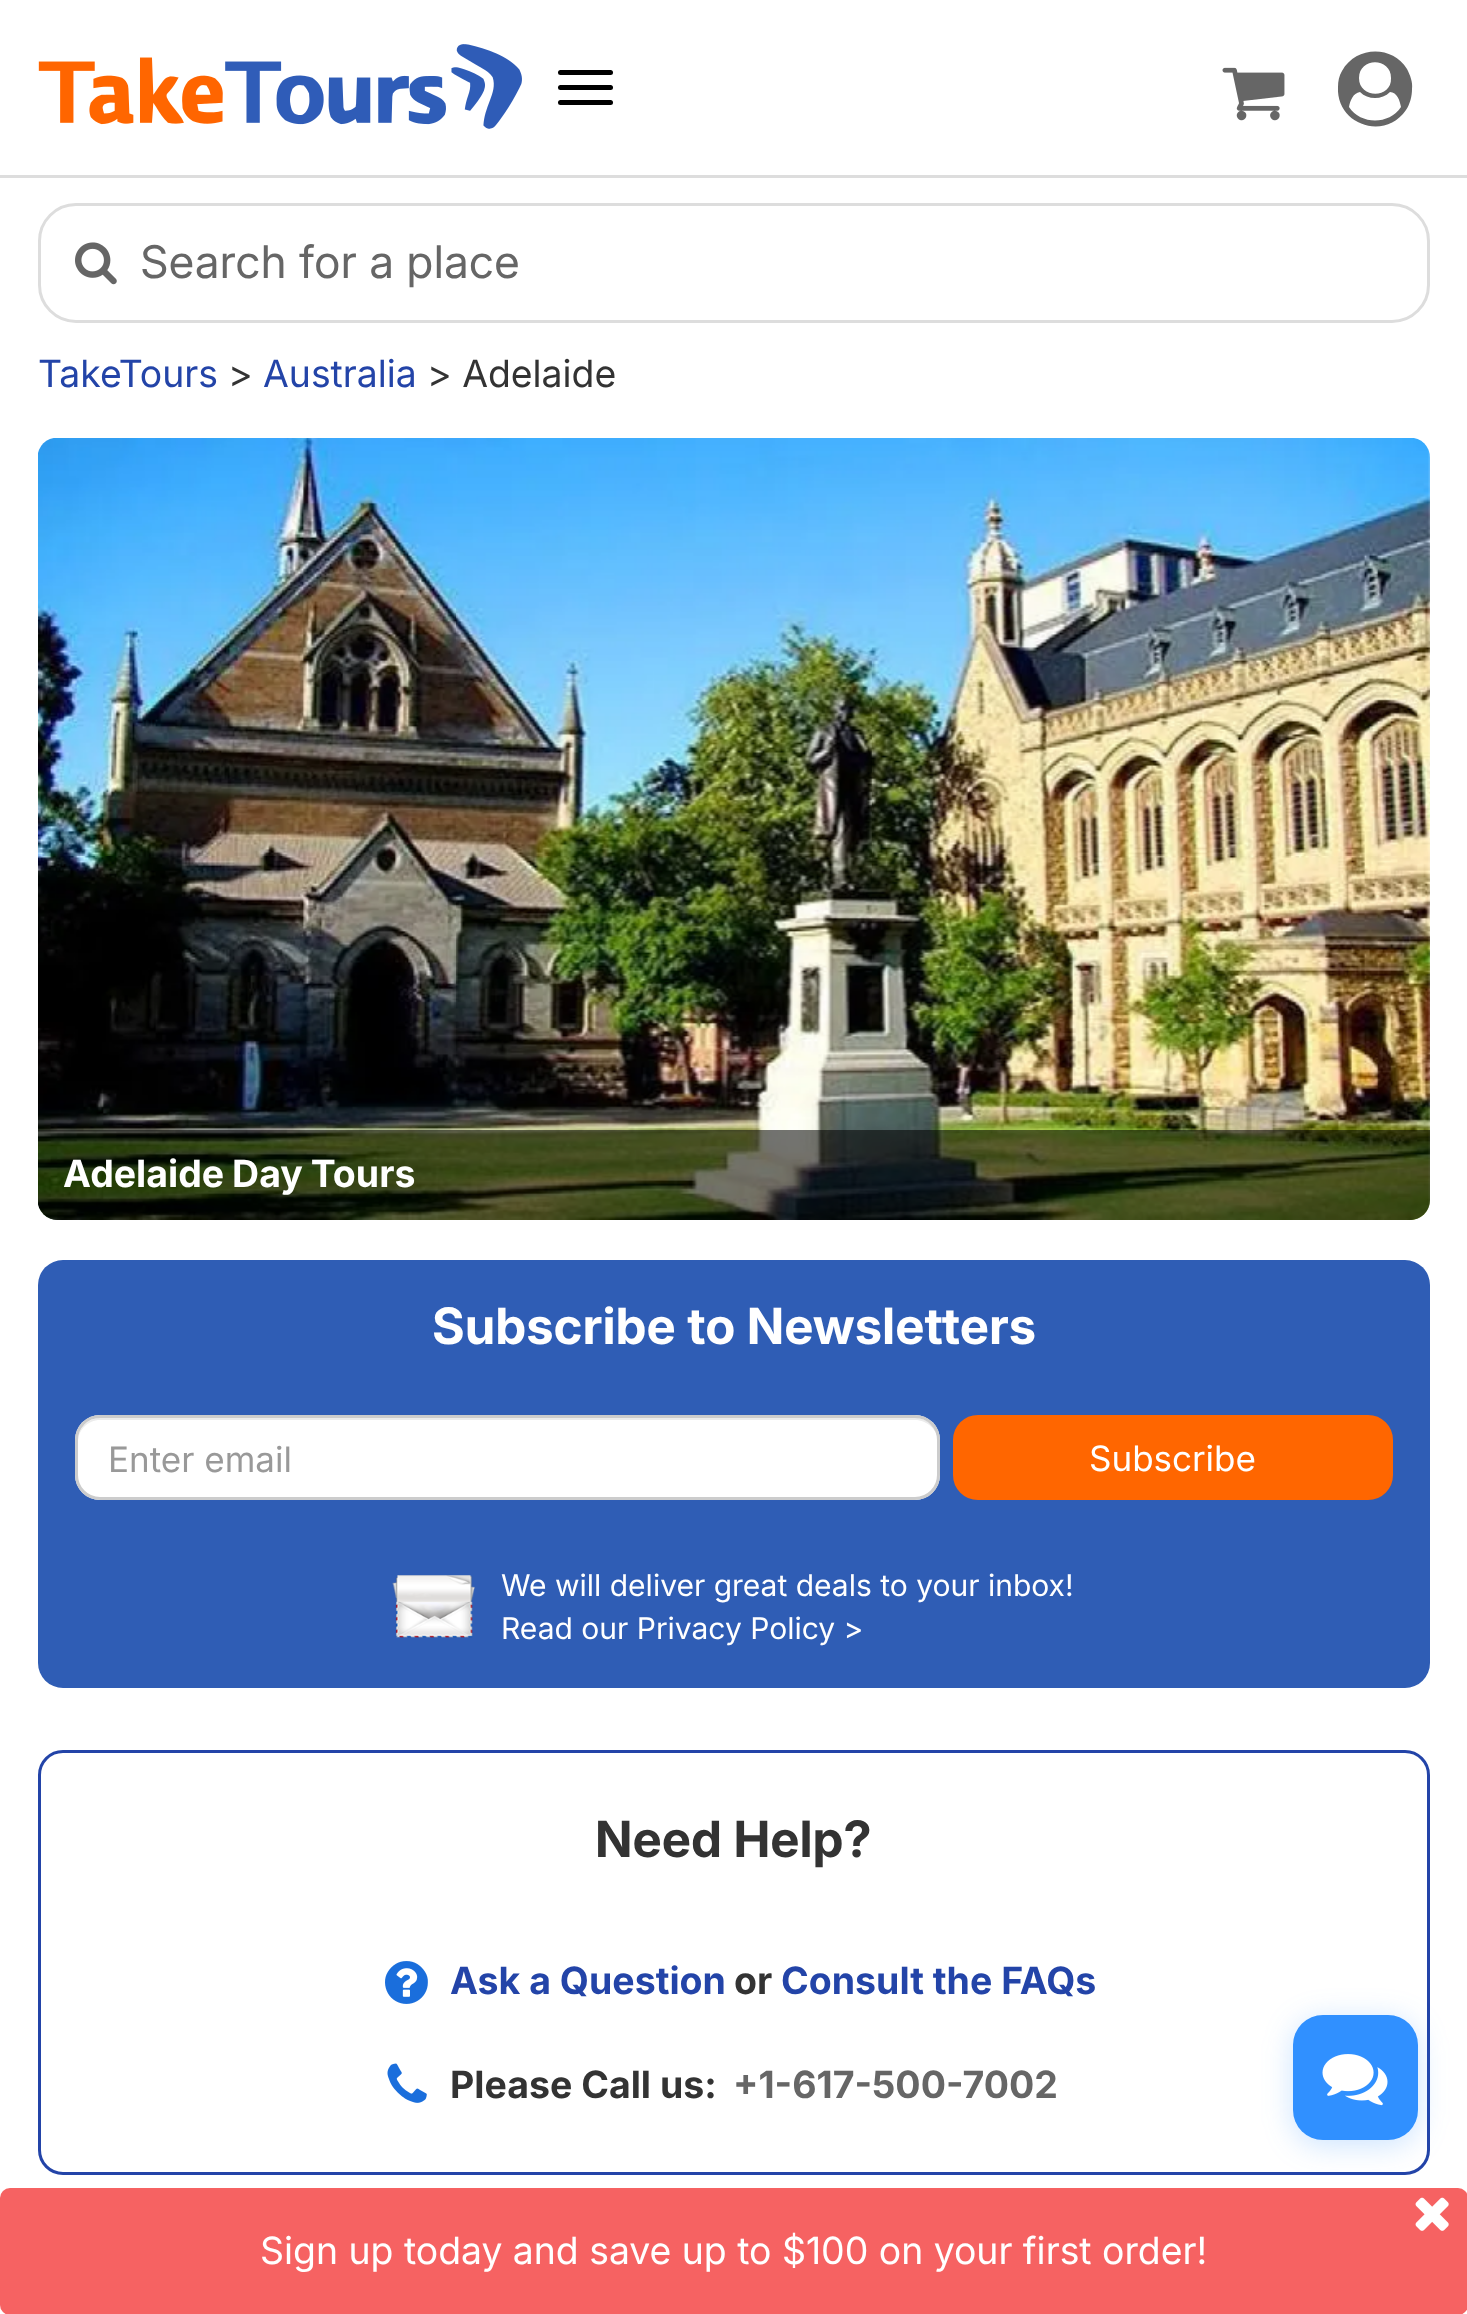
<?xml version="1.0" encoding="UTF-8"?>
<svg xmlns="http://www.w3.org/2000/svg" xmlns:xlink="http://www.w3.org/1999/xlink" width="1467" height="2314">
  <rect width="100%" height="100%" fill="#ffffff" />
  <rect y="175" width="1467" height="3" fill="#dddddd" />
  <image x="38" y="44" width="484" height="85" xlink:href="image1.png" />
  <rect x="558" y="70" width="55" height="5" rx="2.5" fill="#000000" />
  <rect x="558" y="85" width="55" height="5" rx="2.5" fill="#000000" />
  <rect x="558" y="100" width="55" height="5" rx="2.5" fill="#000000" />
  <image x="1222" y="67" width="63" height="54" xlink:href="image2.png" />
  <path d="M 1401 107 c -1 -6 -4 -15 -11 -15 c -8 8 -22 8 -30 0 c -7 1 -10 9 -11 15 c 12 18 40 18 52 0 z m -10 -29 c 0 -21 -32 -21 -32 0 c 0 21 33 21 32 0 z m 21 11 c 0 7 -2 15 -6 21 c -21 31 -70 15 -68 -23 c 0 -6 1 -11 4 -16 c 14 -25 50 -26 65 -2 c 3 6 6 13 5 20 z" fill="#666666" />
  <rect x="39.5" y="204.5" width="1389" height="117" rx="36.5" fill="none" stroke="#dddddd" stroke-width="3" />
  <image x="75" y="242" width="42" height="43" xlink:href="image3.png" />
  <image x="38" y="438" width="1392" height="782" xlink:href="image4.png" />
  <path d="M 38 1130 h 1392 v 70 c 0 11 -9 20 -20 20 h -1352 c -11 0 -20 -9 -20 -20 z" fill="#000000" fill-opacity="0.55" />
  <rect x="38" y="1260" width="1392" height="428" rx="25" fill="#2f5db5" />
  <rect x="75" y="1415" width="865" height="85" rx="25" fill="#ffffff" />
  <path d="M 100 1420 h 815 c 12 0 23 10 23 22 v -1 c 0 -13 -10 -23 -23 -23 h -814 c -13 0 -23 10 -23 23 v 1 c 0 -12 10 -22 22 -22 z" fill="#ececec" />
  <rect x="76.5" y="1416.5" width="862" height="82" rx="23.5" fill="none" stroke="#cccccc" stroke-width="3" />
  <rect x="954.5" y="1416.5" width="437" height="82" rx="23.5" fill="#ff6600" stroke="#ff6600" stroke-width="3" />
  <image x="392" y="1575" width="83" height="63" xlink:href="image5.png" />
  <rect x="39.5" y="1751.5" width="1389" height="422" rx="23.5" fill="none" stroke="#2344a8" stroke-width="3" />
  <image x="385" y="1961" width="43" height="43" xlink:href="image6.png" />
  <image x="387" y="2063" width="40" height="40" xlink:href="image7.png" />
  <rect y="2188" width="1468" height="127" rx="10" fill="#f66262" />
  <rect x="1293" y="2020" width="125" height="125" rx="30" fill="#3090ff" fill-opacity="0.25" filter="blur(15px)" />
  <rect x="1293" y="2015" width="125" height="125" rx="30" fill="#3090ff" />
  <image x="1322" y="2054" width="66" height="52" xlink:href="image8.png" />
  <image x="1415" y="2197" width="34" height="34" xlink:href="image9.png" />
  <text x="140" y="278" style="font-family: 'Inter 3'; font-size: 45px; fill: #666666">Search for a place</text>
  <text x="38" y="387" style="font-family: Inter; font-size: 37.5px; fill: #2344a8">TakeTours</text>
  <text x="228" y="387" style="font-family: Inter; font-size: 37.5px; fill: #333333">&gt;</text>
  <text x="263" y="387" style="font-family: Inter; font-size: 37.5px; fill: #2344a8">Australia</text>
  <text x="427" y="387" style="font-family: Inter; font-size: 37.5px; fill: #333333">&gt; Adelaide</text>
  <text x="63" y="1187" word-spacing="-1" style="font-family: Inter; font-size: 37.5px; font-weight: bold; fill: #ffffff">Adelaide Day Tours</text>
  <text x="432" y="1344" style="font-family: 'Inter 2'; font-size: 50px; font-weight: bold; fill: #ffffff">Subscribe to Newsletters</text>
  <text x="108" y="1472" style="font-family: 'Inter 2'; font-size: 35px; fill: #999999">Enter email</text>
  <text x="1089" y="1471" style="font-family: 'Inter 2'; font-size: 35px; fill: #ffffff">Subscribe</text>
  <text x="501" y="1596" style="font-family: 'Inter 2'; font-size: 30px; fill: #ffffff">We will deliver great deals to your inbox!</text>
  <text x="501" y="1639" style="font-family: 'Inter 2'; font-size: 30px; fill: #ffffff">Read our Privacy Policy &gt;</text>
  <text x="595" y="1857" style="font-family: 'Inter 2'; font-size: 50px; font-weight: bold; fill: #333333">Need Help?</text>
  <text x="450" y="1994" style="font-family: Inter; font-size: 37.5px; font-weight: bold; fill: #2344a8">Ask a Question</text>
  <text x="734" y="1994" style="font-family: Inter; font-size: 37.5px; font-weight: bold; fill: #333333">or</text>
  <text x="781" y="1994" style="font-family: Inter; font-size: 37.5px; font-weight: bold; fill: #2344a8">Consult the FAQs</text>
  <text x="450" y="2098" style="font-family: Inter; font-size: 37.5px; font-weight: bold; fill: #333333">Please Call us:</text>
  <text x="733" y="2098" style="font-family: Inter; font-size: 37.5px; font-weight: bold; fill: #666666">+1-617-500-7002</text>
  <text x="260" y="2264" style="font-family: Inter; font-size: 37.5px; fill: #ffffff">Sign up today and save up to $100 on your first order!</text>
</svg>
